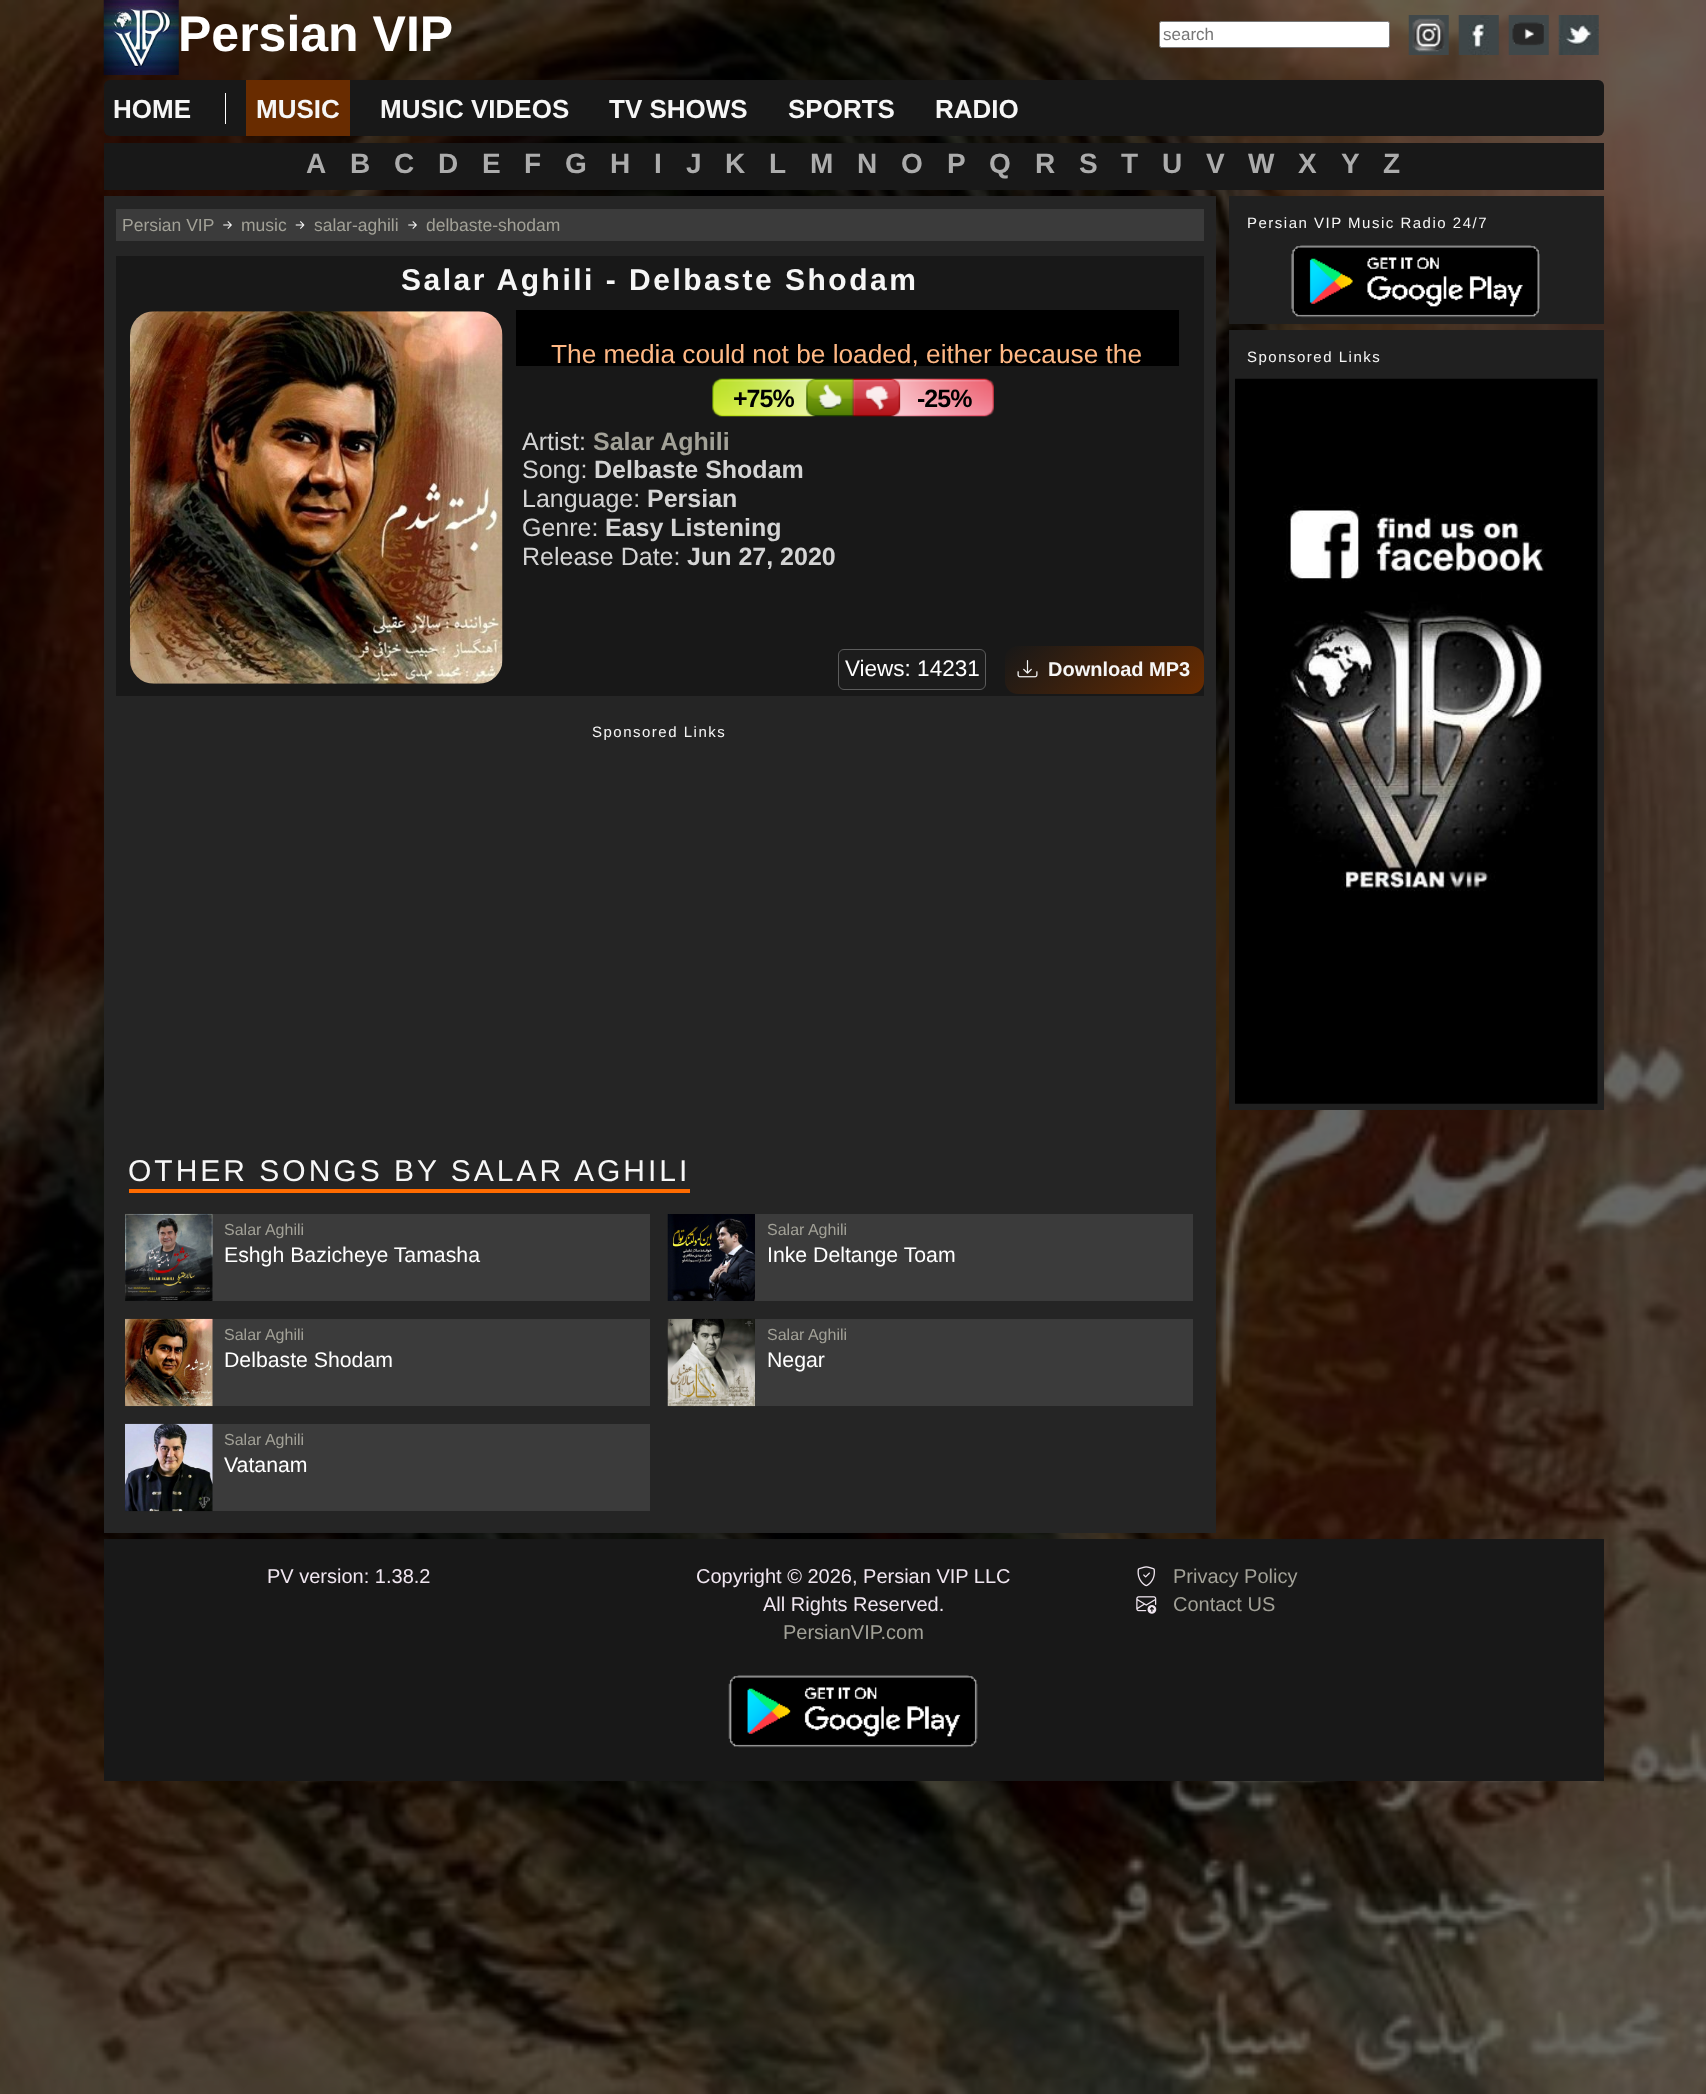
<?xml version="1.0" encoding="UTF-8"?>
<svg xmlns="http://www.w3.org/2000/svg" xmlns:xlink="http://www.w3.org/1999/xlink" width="1706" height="2094">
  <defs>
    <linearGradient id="g1" gradientUnits="userSpaceOnUse" x1="1043" y1="608" x2="1166" y2="732"><stop offset="0" stop-color="#181818" /><stop offset="1" stop-color="#692c00" /></linearGradient>
  </defs>
  <rect width="100%" height="100%" fill="#ffffff" />
  <image x="0" y="0" width="1706" height="2094" xlink:href="image1.png" />
  <image x="103" y="0" width="76" height="75" xlink:href="image2.png" />
  <rect x="1159.5" y="21.5" width="230" height="26" rx="2" fill="#ffffff" stroke="#767676" />
  <image x="1408" y="15" width="41" height="40" xlink:href="image3.png" />
  <image x="1458" y="15" width="41" height="40" xlink:href="image4.png" />
  <image x="1508" y="15" width="41" height="40" xlink:href="image5.png" />
  <image x="1558" y="15" width="41" height="40" xlink:href="image6.png" />
  <rect x="104" y="80" width="1500" height="56" rx="6" fill="#181818" />
  <rect x="225" y="93" width="1" height="31" fill="#ffffff" />
  <rect x="246" y="80" width="104" height="56" fill="#692c00" />
  <rect x="104" y="143" width="1500" height="47" fill="#181818" />
  <rect x="104" y="196" width="1112" height="1337" fill="#252525" />
  <rect x="116" y="209" width="1088" height="32" fill="#3b3b3b" />
  <image x="223" y="221" width="9" height="8" xlink:href="image7.png" />
  <image x="295" y="221" width="10" height="8" xlink:href="image8.png" />
  <image x="408" y="221" width="9" height="8" xlink:href="image7.png" />
  <rect x="116" y="256" width="1088" height="440" fill="#181818" />
  <image x="130" y="311" width="373" height="373" xlink:href="image9.png" />
  <rect x="516" y="310" width="663" height="56" fill="#000000" />
  <image x="712" y="378" width="282" height="39" xlink:href="image10.png" />
  <rect x="838.5" y="649.5" width="147" height="40" rx="5.5" fill="#1c1c1c" stroke="#5c5c5c" />
  <rect x="1005" y="646" width="199" height="48" rx="13" fill="url(#g1)" />
  <image x="1017" y="660" width="21" height="18" xlink:href="image11.png" />
  <rect x="129" y="1189" width="561" height="4" fill="#ff6b00" />
  <rect x="212" y="1214" width="438" height="87" fill="#3b3b3b" />
  <image x="125" y="1213" width="88" height="88" xlink:href="image12.png" />
  <rect x="755" y="1214" width="438" height="87" fill="#3b3b3b" />
  <image x="667" y="1214" width="88" height="87" xlink:href="image13.png" />
  <rect x="212" y="1319" width="438" height="87" fill="#3b3b3b" />
  <image x="125" y="1318" width="88" height="89" xlink:href="image14.png" />
  <rect x="755" y="1319" width="438" height="87" fill="#3b3b3b" />
  <image x="667" y="1318" width="88" height="89" xlink:href="image15.png" />
  <rect x="212" y="1424" width="438" height="87" fill="#3b3b3b" />
  <image x="125" y="1423" width="88" height="89" xlink:href="image16.png" />
  <rect x="1229" y="196" width="375" height="128" fill="#202020" />
  <image x="1291" y="245" width="249" height="73" xlink:href="image17.png" />
  <rect x="1229" y="330" width="375" height="780" fill="#202020" />
  <image x="1235" y="378" width="363" height="726" xlink:href="image18.png" />
  <rect x="104" y="1539" width="1500" height="242" fill="#181818" />
  <image x="728" y="1675" width="250" height="73" xlink:href="image19.png" />
  <image x="1137" y="1566" width="18" height="21" xlink:href="image20.png" />
  <image x="1136" y="1596" width="21" height="18" xlink:href="image21.png" />
  <text x="178" y="51" style="font-family: Liberation Sans; font-size: 50px; font-weight: bold; fill: #ffffff">Persian VIP</text>
  <text x="1163" y="40" style="font-family: Liberation Sans; font-size: 17px; fill: #757575">search</text>
  <text x="113" y="118" style="font-family: Liberation Sans; font-size: 26px; font-weight: bold; fill: #f6f6f6">HOME</text>
  <text x="256" y="118" style="font-family: Liberation Sans; font-size: 26px; font-weight: bold; fill: #f6f6f6">MUSIC</text>
  <text x="380" y="118" style="font-family: Liberation Sans; font-size: 26px; font-weight: bold; fill: #f6f6f6">MUSIC VIDEOS</text>
  <text x="609" y="118" style="font-family: Liberation Sans; font-size: 26px; font-weight: bold; fill: #f6f6f6">TV SHOWS</text>
  <text x="788" y="118" style="font-family: Liberation Sans; font-size: 26px; font-weight: bold; fill: #f6f6f6">SPORTS</text>
  <text x="935" y="118" style="font-family: Liberation Sans; font-size: 26px; font-weight: bold; fill: #f6f6f6">RADIO</text>
  <text x="306" y="173" style="font-family: Liberation Sans; font-size: 28px; font-weight: bold; fill: #acacac">A</text>
  <text x="350" y="173" style="font-family: Liberation Sans; font-size: 28px; font-weight: bold; fill: #acacac">B</text>
  <text x="394" y="173" style="font-family: Liberation Sans; font-size: 28px; font-weight: bold; fill: #acacac">C</text>
  <text x="438" y="173" style="font-family: Liberation Sans; font-size: 28px; font-weight: bold; fill: #acacac">D</text>
  <text x="482" y="173" style="font-family: Liberation Sans; font-size: 28px; font-weight: bold; fill: #acacac">E</text>
  <text x="524" y="173" style="font-family: Liberation Sans; font-size: 28px; font-weight: bold; fill: #acacac">F</text>
  <text x="565" y="173" style="font-family: Liberation Sans; font-size: 28px; font-weight: bold; fill: #acacac">G</text>
  <text x="610" y="173" style="font-family: Liberation Sans; font-size: 28px; font-weight: bold; fill: #acacac">H</text>
  <text x="654" y="173" style="font-family: Liberation Sans; font-size: 28px; font-weight: bold; fill: #acacac">I</text>
  <text x="686" y="173" style="font-family: Liberation Sans; font-size: 28px; font-weight: bold; fill: #acacac">J</text>
  <text x="725" y="173" style="font-family: Liberation Sans; font-size: 28px; font-weight: bold; fill: #acacac">K</text>
  <text x="769" y="173" style="font-family: Liberation Sans; font-size: 28px; font-weight: bold; fill: #acacac">L</text>
  <text x="810" y="173" style="font-family: Liberation Sans; font-size: 28px; font-weight: bold; fill: #acacac">M</text>
  <text x="857" y="173" style="font-family: Liberation Sans; font-size: 28px; font-weight: bold; fill: #acacac">N</text>
  <text x="901" y="173" style="font-family: Liberation Sans; font-size: 28px; font-weight: bold; fill: #acacac">O</text>
  <text x="947" y="173" style="font-family: Liberation Sans; font-size: 28px; font-weight: bold; fill: #acacac">P</text>
  <text x="989" y="173" style="font-family: Liberation Sans; font-size: 28px; font-weight: bold; fill: #acacac">Q</text>
  <text x="1035" y="173" style="font-family: Liberation Sans; font-size: 28px; font-weight: bold; fill: #acacac">R</text>
  <text x="1079" y="173" style="font-family: Liberation Sans; font-size: 28px; font-weight: bold; fill: #acacac">S</text>
  <text x="1121" y="173" style="font-family: Liberation Sans; font-size: 28px; font-weight: bold; fill: #acacac">T</text>
  <text x="1162" y="173" style="font-family: Liberation Sans; font-size: 28px; font-weight: bold; fill: #acacac">U</text>
  <text x="1206" y="173" style="font-family: Liberation Sans; font-size: 28px; font-weight: bold; fill: #acacac">V</text>
  <text x="1248" y="173" style="font-family: Liberation Sans; font-size: 28px; font-weight: bold; fill: #acacac">W</text>
  <text x="1298" y="173" style="font-family: Liberation Sans; font-size: 28px; font-weight: bold; fill: #acacac">X</text>
  <text x="1341" y="173" style="font-family: Liberation Sans; font-size: 28px; font-weight: bold; fill: #acacac">Y</text>
  <text x="1383" y="173" style="font-family: Liberation Sans; font-size: 28px; font-weight: bold; fill: #acacac">Z</text>
  <text x="122" y="231" style="font-family: Liberation Sans; font-size: 17.5px; fill: #a2a197">Persian VIP</text>
  <text x="241" y="231" style="font-family: Liberation Sans; font-size: 17.5px; fill: #a2a197">music</text>
  <text x="314" y="231" style="font-family: Liberation Sans; font-size: 17.5px; fill: #a2a197">salar-aghili</text>
  <text x="426" y="231" style="font-family: Liberation Sans; font-size: 17.5px; fill: #a2a197">delbaste-shodam</text>
  <text x="401" y="290" style="font-family: Liberation Sans; font-size: 30px; font-weight: bold; letter-spacing: 2.5px; fill: #f6f6f6">Salar Aghili - Delbaste Shodam</text>
  <text x="551" y="363" style="font-family: Liberation Sans; font-size: 26.25px; fill: #ffb884">The media could not be loaded, either because the</text>
  <text x="733" y="407" style="font-family: Liberation Sans; font-size: 25px; font-weight: bold; letter-spacing: -1px; fill: #000000">+75%</text>
  <text x="917" y="407" style="font-family: Liberation Sans; font-size: 25px; font-weight: bold; letter-spacing: -1px; fill: #000000">-25%</text>
  <text x="522" y="450" style="font-family: Liberation Sans; font-size: 25px; fill: #d4d4d4">Artist:</text>
  <text x="593" y="450" style="font-family: Liberation Sans; font-size: 25px; font-weight: bold; fill: #a2a197">Salar Aghili</text>
  <text x="522" y="478" style="font-family: Liberation Sans; font-size: 25px; fill: #d4d4d4">Song:</text>
  <text x="594" y="478" style="font-family: Liberation Sans; font-size: 25px; font-weight: bold; fill: #d4d4d4">Delbaste Shodam</text>
  <text x="522" y="507" style="font-family: Liberation Sans; font-size: 25px; fill: #d4d4d4">Language:</text>
  <text x="647" y="507" style="font-family: Liberation Sans; font-size: 25px; font-weight: bold; fill: #d4d4d4">Persian</text>
  <text x="522" y="536" style="font-family: Liberation Sans; font-size: 25px; fill: #d4d4d4">Genre:</text>
  <text x="605" y="536" style="font-family: Liberation Sans; font-size: 25px; font-weight: bold; fill: #d4d4d4">Easy Listening</text>
  <text x="522" y="565" style="font-family: Liberation Sans; font-size: 25px; fill: #d4d4d4">Release Date:</text>
  <text x="687" y="565" style="font-family: Liberation Sans; font-size: 25px; font-weight: bold; fill: #d4d4d4">Jun 27, 2020</text>
  <text x="845" y="676" style="font-family: Liberation Sans; font-size: 22.5px; fill: #ffffff">Views: 14231</text>
  <text x="1048" y="676" style="font-family: Liberation Sans; font-size: 20px; font-weight: bold; fill: #f6f6f6">Download MP3</text>
  <text x="592" y="737" style="font-family: Liberation Sans; font-size: 15px; letter-spacing: 1.5px; fill: #f6f6f6">Sponsored Links</text>
  <text x="128" y="1181" style="font-family: Liberation Sans; font-size: 30px; letter-spacing: 3px; fill: #f6f6f6">OTHER SONGS BY SALAR AGHILI</text>
  <text x="224" y="1235" style="font-family: Liberation Sans; font-size: 16px; fill: #a2a197">Salar Aghili</text>
  <text x="224" y="1262" style="font-family: Liberation Sans; font-size: 21.25px; fill: #ffffff">Eshgh Bazicheye Tamasha</text>
  <text x="767" y="1235" style="font-family: Liberation Sans; font-size: 16px; fill: #a2a197">Salar Aghili</text>
  <text x="767" y="1262" style="font-family: Liberation Sans; font-size: 21.25px; fill: #ffffff">Inke Deltange Toam</text>
  <text x="224" y="1340" style="font-family: Liberation Sans; font-size: 16px; fill: #a2a197">Salar Aghili</text>
  <text x="224" y="1367" style="font-family: Liberation Sans; font-size: 21.25px; fill: #ffffff">Delbaste Shodam</text>
  <text x="767" y="1340" style="font-family: Liberation Sans; font-size: 16px; fill: #a2a197">Salar Aghili</text>
  <text x="767" y="1367" style="font-family: Liberation Sans; font-size: 21.25px; fill: #ffffff">Negar</text>
  <text x="224" y="1445" style="font-family: Liberation Sans; font-size: 16px; fill: #a2a197">Salar Aghili</text>
  <text x="224" y="1472" style="font-family: Liberation Sans; font-size: 21.25px; fill: #ffffff">Vatanam</text>
  <text x="1247" y="228" style="font-family: Liberation Sans; font-size: 15px; letter-spacing: 1.5px; fill: #f6f6f6">Persian VIP Music Radio 24/7</text>
  <text x="1247" y="362" style="font-family: Liberation Sans; font-size: 15px; letter-spacing: 1.5px; fill: #f6f6f6">Sponsored Links</text>
  <text x="267" y="1583" style="font-family: Liberation Sans; font-size: 20px; fill: #f0e6f0">PV version: 1.38.2</text>
  <text x="696" y="1583" style="font-family: Liberation Sans; font-size: 20px; fill: #f0e6f0">Copyright © 2026, Persian VIP LLC</text>
  <text x="763" y="1611" style="font-family: Liberation Sans; font-size: 20px; fill: #f0e6f0">All Rights Reserved.</text>
  <text x="783" y="1639" style="font-family: Liberation Sans; font-size: 20px; fill: #a2a197">PersianVIP.com</text>
  <text x="1173" y="1583" style="font-family: Liberation Sans; font-size: 20px; fill: #a2a197">Privacy Policy</text>
  <text x="1173" y="1611" style="font-family: Liberation Sans; font-size: 20px; fill: #a2a197">Contact US</text>
</svg>
